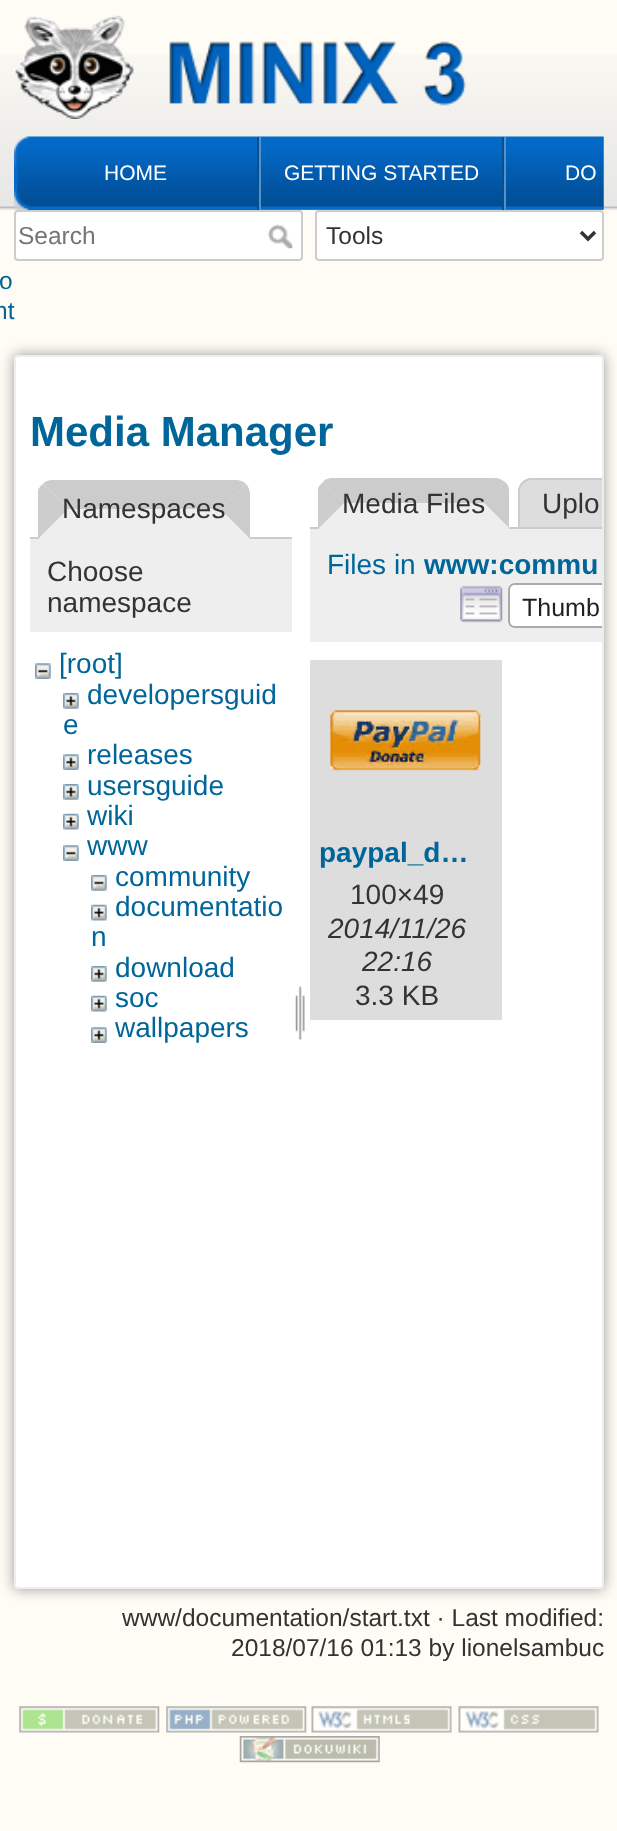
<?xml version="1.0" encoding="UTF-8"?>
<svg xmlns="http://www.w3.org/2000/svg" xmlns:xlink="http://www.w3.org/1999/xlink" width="617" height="1831">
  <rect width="100%" height="100%" fill="#fefcf4" />
  <image x="0" y="53" width="617" height="158" xlink:href="image1.png" />
  <image x="14" y="15" width="452" height="104" xlink:href="image2.png" />
  <image x="14" y="136" width="245" height="74" xlink:href="image3.png" />
  <rect x="257" y="137" width="2" height="73" fill="#094f90" />
  <image x="259" y="136" width="245" height="74" xlink:href="image4.png" />
  <rect x="502" y="137" width="2" height="73" fill="#094f90" />
  <rect x="259" y="137" width="2" height="73" fill="#5092d0" />
  <image x="504" y="136" width="100" height="74" xlink:href="image5.png" />
  <rect x="504" y="137" width="2" height="73" fill="#5092d0" />
  <rect x="15" y="211" width="287" height="49" rx="3" fill="#ffffff" stroke="#cccccc" stroke-width="2" />
  <image x="268" y="224" width="25" height="25" xlink:href="image6.png" />
  <rect x="316" y="211" width="287" height="49" rx="3" fill="#ffffff" stroke="#cccccc" stroke-width="2" />
  <path d="M 581 232 l 7 7 l 7 -7" fill="none" stroke="#333333" stroke-width="3.5" />
  <rect x="14" y="355" width="590" height="1234" rx="4" fill="#999999" filter="blur(7px)" />
  <rect x="15" y="356" width="588" height="1232" rx="3" fill="#ffffff" stroke="#eeeeee" stroke-width="2" />
  <path d="M 52 480 c -3 0 -7 1 -9 4 l 25 25 h 152 l 26 -25 c -3 -3 -6 -4 -10 -4 z" fill="#cccccc" />
  <rect x="30" y="537" width="262" height="2" fill="#cccccc" />
  <path d="M 250 539 v -45 c 0 -4 -2 -8 -4 -10 l -26 25 z" fill="#cccccc" />
  <path d="M 250 539 l -30 -30 h -152 l -30 30 z" fill="#eeeeee" />
  <path d="M 38 539 l 30 -30 l -25 -25 c -2 1 -4 4 -5 6 z" fill="#cccccc" />
  <rect x="30" y="539" width="262" height="93" fill="#eeeeee" />
  <image x="35" y="663" width="16" height="16" xlink:href="image7.png" />
  <image x="63" y="693" width="16" height="16" xlink:href="image8.png" />
  <image x="63" y="754" width="16" height="16" xlink:href="image9.png" />
  <image x="63" y="784" width="16" height="16" xlink:href="image8.png" />
  <image x="63" y="813" width="16" height="17" xlink:href="image10.png" />
  <image x="63" y="845" width="16" height="16" xlink:href="image7.png" />
  <image x="91" y="875" width="16" height="16" xlink:href="image11.png" />
  <image x="91" y="904" width="16" height="17" xlink:href="image12.png" />
  <image x="91" y="966" width="16" height="16" xlink:href="image13.png" />
  <image x="91" y="995" width="16" height="17" xlink:href="image12.png" />
  <image x="91" y="1027" width="16" height="16" xlink:href="image14.png" />
  <image x="295" y="985" width="10" height="55" xlink:href="image15.png" />
  <rect x="310" y="527" width="208" height="2" fill="#cccccc" />
  <path d="M 333 478 h 162 c 7.5 0 14 6.5 14 14 v 37 h -190 v -37 c 0 -7.5 6.5 -14 14 -14 z" fill="#eeeeee" />
  <path d="M 332 478 c -3 0 -7 1 -9 4 l 21 21 h 140 l 21 -21 c -3 -2 -6 -4 -10 -4 z" fill="#cccccc" />
  <path d="M 508 527 l 1 1 v -36 c 0 -4 -1 -8 -4 -10 l -21 21 z" fill="#cccccc" />
  <path d="M 509 528 l -25 -25 h -140 l -25 25 z" fill="#eeeeee" />
  <path d="M 318 488 c 1 -2 3 -4 5 -6 l 21 21 l -25 25 h -1 z" fill="#cccccc" />
  <path d="M 532 478 h 70 v 51 h -84 v -37 c 0 -7.5 6.5 -14 14 -14 z" fill="#dddddd" />
  <path d="M 532 478 c -8 0 -14 6 -14 14 v 37 h 84 v -2 h -82 v -35 c 0 -7 5 -12 12 -12 h 70 v -2 z" fill="#cccccc" />
  <rect x="310" y="529" width="292" height="113" fill="#eeeeee" />
  <image x="460" y="585" width="43" height="38" xlink:href="image16.png" />
  <path d="M 515 583 h 87 v 45 h -87 c -4 0 -7 -3 -7 -7 v -31 c 0 -4 3 -7 7 -7 z" fill="#ffffff" />
  <image x="507" y="583" width="6" height="45" xlink:href="image17.png" />
  <path d="M 515 583 c -4 0 -7 3 -7 7 v 31 c 0 4 3 7 7 7 h 87 v -2 h -87 c -3 0 -5 -2 -5 -5 v -31 c 0 -3 2 -5 5 -5 h 87 v -2 z" fill="#aaaaaa" />
  <rect x="310" y="660" width="192" height="360" fill="#dddddd" />
  <image x="330" y="710" width="152" height="61" xlink:href="image18.png" />
  <image x="19" y="1706" width="141" height="27" xlink:href="image19.png" />
  <image x="166" y="1706" width="141" height="27" xlink:href="image20.png" />
  <image x="311" y="1706" width="141" height="27" xlink:href="image21.png" />
  <image x="458" y="1706" width="141" height="27" xlink:href="image22.png" />
  <image x="239" y="1736" width="141" height="27" xlink:href="image23.png" />
  <text x="104" y="180" style="font-family: Liberation Sans; font-size: 21px; fill: #ffffff">HOME</text>
  <text x="284" y="180" style="font-family: Liberation Sans; font-size: 21px; fill: #ffffff">GETTING STARTED</text>
  <text x="565" y="180" style="font-family: Liberation Sans; font-size: 21px; fill: #ffffff">DO</text>
  <text x="18" y="244" style="font-family: Liberation Sans; font-size: 24.5px; fill: #757575">Search</text>
  <text x="326" y="244" style="font-family: Liberation Sans; font-size: 24.5px; fill: #333333">Tools</text>
  <text x="-1" y="289" style="font-family: Liberation Sans; font-size: 24.5px; fill: #006699">o</text>
  <text x="-6" y="319" style="font-family: Liberation Sans; font-size: 24.5px; fill: #006699">nt</text>
  <text x="30" y="446" style="font-family: Liberation Sans; font-size: 42px; font-weight: bold; fill: #006699">Media Manager</text>
  <text x="62" y="518" style="font-family: Liberation Sans; font-size: 28px; fill: #333333">Namespaces</text>
  <text x="47" y="581" style="font-family: Liberation Sans; font-size: 28px; fill: #333333">Choose</text>
  <text x="47" y="612" style="font-family: Liberation Sans; font-size: 28px; fill: #333333">namespace</text>
  <text x="59" y="673" style="font-family: Liberation Sans; font-size: 28px; fill: #006699">[root]</text>
  <text x="87" y="704" style="font-family: Liberation Sans; font-size: 28px; fill: #006699">developersguid</text>
  <text x="63" y="734" style="font-family: Liberation Sans; font-size: 28px; fill: #006699">e</text>
  <text x="87" y="764" style="font-family: Liberation Sans; font-size: 28px; fill: #006699">releases</text>
  <text x="87" y="795" style="font-family: Liberation Sans; font-size: 28px; fill: #006699">usersguide</text>
  <text x="87" y="825" style="font-family: Liberation Sans; font-size: 28px; fill: #006699">wiki</text>
  <text x="87" y="855" style="font-family: Liberation Sans; font-size: 28px; fill: #006699">www</text>
  <text x="115" y="886" style="font-family: Liberation Sans; font-size: 28px; fill: #006699">community</text>
  <text x="115" y="916" style="font-family: Liberation Sans; font-size: 28px; fill: #006699">documentatio</text>
  <text x="91" y="946" style="font-family: Liberation Sans; font-size: 28px; fill: #006699">n</text>
  <text x="115" y="977" style="font-family: Liberation Sans; font-size: 28px; fill: #006699">download</text>
  <text x="115" y="1007" style="font-family: Liberation Sans; font-size: 28px; fill: #006699">soc</text>
  <text x="115" y="1037" style="font-family: Liberation Sans; font-size: 28px; fill: #006699">wallpapers</text>
  <text x="342" y="513" style="font-family: Liberation Sans; font-size: 28px; fill: #333333">Media Files</text>
  <text x="542" y="513" style="font-family: Liberation Sans; font-size: 28px; fill: #333333">Uplo</text>
  <text x="327" y="574" style="font-family: Liberation Sans; font-size: 28px; fill: #006699">Files in</text>
  <text x="424" y="574" style="font-family: Liberation Sans; font-size: 28px; font-weight: bold; fill: #006699">www:commu</text>
  <text x="522" y="616" style="font-family: Liberation Sans; font-size: 25px; fill: #212121">Thumb</text>
  <text x="319" y="862" style="font-family: Liberation Sans; font-size: 28px; font-weight: bold; fill: #006699">paypal_d…</text>
  <text x="350" y="904" style="font-family: Liberation Sans; font-size: 28px; fill: #333333">100×49</text>
  <text x="328" y="938" style="font-family: Liberation Sans; font-size: 28px; font-style: italic; fill: #333333">2014/11/26</text>
  <text x="362" y="971" style="font-family: Liberation Sans; font-size: 28px; font-style: italic; fill: #333333">22:16</text>
  <text x="355" y="1005" style="font-family: Liberation Sans; font-size: 28px; fill: #333333">3.3 KB</text>
  <text x="122" y="1626" style="font-family: Liberation Sans; font-size: 24.5px; fill: #333333">www/documentation/start.txt · Last modified:</text>
  <text x="231" y="1656" style="font-family: Liberation Sans; font-size: 24.5px; fill: #333333">2018/07/16 01:13 by lionelsambuc</text>
</svg>
